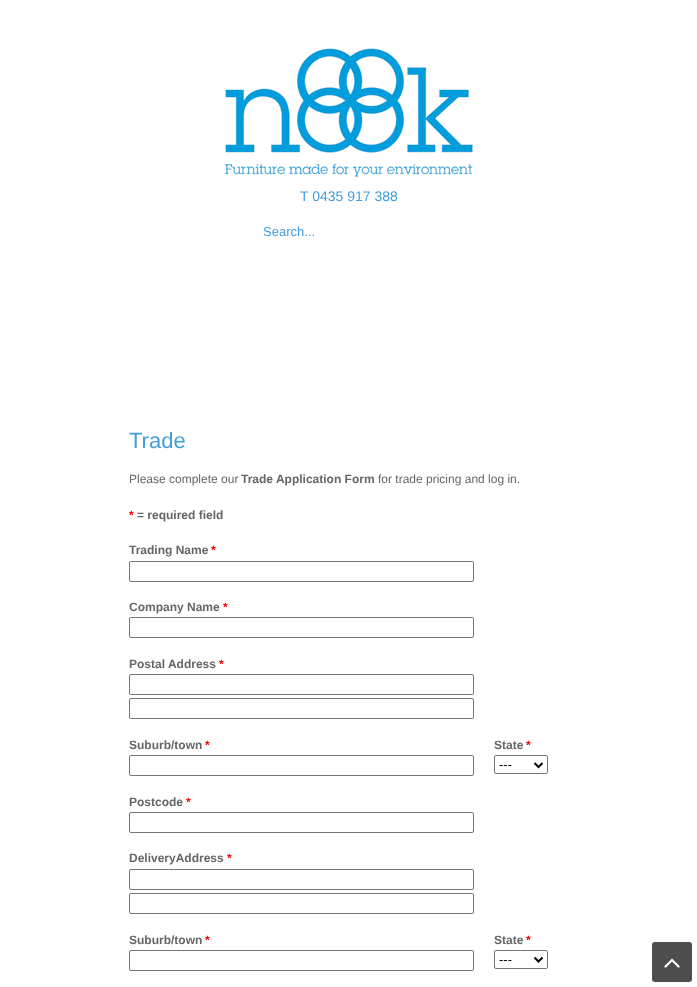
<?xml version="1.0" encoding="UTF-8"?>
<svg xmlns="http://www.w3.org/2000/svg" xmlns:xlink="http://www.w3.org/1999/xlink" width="697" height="987">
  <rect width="100%" height="100%" fill="#ffffff" />
  <image x="224" y="48" width="249" height="129" xlink:href="image1.png" />
  <rect x="129.5" y="561.5" width="344" height="20" rx="1.5" fill="none" stroke="#767676" />
  <rect x="129.5" y="617.5" width="344" height="20" rx="1.5" fill="none" stroke="#767676" />
  <rect x="129.5" y="674.5" width="344" height="20" rx="1.5" fill="none" stroke="#767676" />
  <rect x="129.5" y="698.5" width="344" height="20" rx="1.5" fill="none" stroke="#767676" />
  <rect x="129.5" y="755.5" width="344" height="20" rx="1.5" fill="none" stroke="#767676" />
  <rect x="494.5" y="755.5" width="53" height="18" rx="1.5" fill="none" stroke="#767676" />
  <path d="M 534.5 763 l 4 4 l 4 -4" fill="none" stroke="#000000" stroke-width="2" />
  <rect x="129.5" y="812.5" width="344" height="20" rx="1.5" fill="none" stroke="#767676" />
  <rect x="129.5" y="869.5" width="344" height="20" rx="1.5" fill="none" stroke="#767676" />
  <rect x="129.5" y="893.5" width="344" height="20" rx="1.5" fill="none" stroke="#767676" />
  <rect x="129.5" y="950.5" width="344" height="20" rx="1.5" fill="none" stroke="#767676" />
  <rect x="494.5" y="950.5" width="53" height="18" rx="1.5" fill="none" stroke="#767676" />
  <path d="M 534.5 957.5 l 4 4 l 4 -4" fill="none" stroke="#000000" stroke-width="2" />
  <rect x="652" y="942" width="40" height="40" rx="3" fill="#4d4d4d" />
  <image x="664" y="958" width="16" height="10" xlink:href="image2.png" />
  <text x="300" y="201" style="font-family: Liberation Sans; font-size: 14px; fill: #429edc">T 0435 917 388</text>
  <text x="263" y="236" style="font-family: Liberation Sans; font-size: 13px; fill: #429edc">Search...</text>
  <text x="129" y="448" style="font-family: Liberation Sans; font-size: 22px; fill: #429edc">Trade</text>
  <text x="129" y="483" style="font-family: Liberation Sans; font-size: 12px; fill: #666666">Please complete our</text>
  <text x="241" y="483" style="font-family: Liberation Sans; font-size: 12px; font-weight: bold; fill: #666666">Trade Application Form</text>
  <text x="378" y="483" style="font-family: Liberation Sans; font-size: 12px; fill: #666666">for trade pricing and log in.</text>
  <text x="129" y="519" style="font-family: Liberation Sans; font-size: 12px; font-weight: bold; fill: #ff0000">*</text>
  <text x="137" y="519" style="font-family: Liberation Sans; font-size: 12px; font-weight: bold; fill: #666666">= required field</text>
  <text x="129" y="554" style="font-family: Liberation Sans; font-size: 12px; font-weight: bold; fill: #666666">Trading Name</text>
  <text x="211" y="554" style="font-family: Liberation Sans; font-size: 12px; font-weight: bold; fill: #ff0000">*</text>
  <text x="129" y="611" style="font-family: Liberation Sans; font-size: 12px; font-weight: bold; fill: #666666">Company Name</text>
  <text x="223" y="611" style="font-family: Liberation Sans; font-size: 12px; font-weight: bold; fill: #ff0000">*</text>
  <text x="129" y="668" style="font-family: Liberation Sans; font-size: 12px; font-weight: bold; fill: #666666">Postal Address</text>
  <text x="219" y="668" style="font-family: Liberation Sans; font-size: 12px; font-weight: bold; fill: #ff0000">*</text>
  <text x="129" y="749" style="font-family: Liberation Sans; font-size: 12px; font-weight: bold; fill: #666666">Suburb/town</text>
  <text x="205" y="749" style="font-family: Liberation Sans; font-size: 12px; font-weight: bold; fill: #ff0000">*</text>
  <text x="494" y="749" style="font-family: Liberation Sans; font-size: 12px; font-weight: bold; fill: #666666">State</text>
  <text x="526" y="749" style="font-family: Liberation Sans; font-size: 12px; font-weight: bold; fill: #ff0000">*</text>
  <text x="499" y="769" style="font-family: Liberation Sans; font-size: 13px; fill: #000000">---</text>
  <text x="129" y="806" style="font-family: Liberation Sans; font-size: 12px; font-weight: bold; fill: #666666">Postcode</text>
  <text x="186" y="806" style="font-family: Liberation Sans; font-size: 12px; font-weight: bold; fill: #ff0000">*</text>
  <text x="129" y="862" style="font-family: Liberation Sans; font-size: 12px; font-weight: bold; fill: #666666">DeliveryAddress</text>
  <text x="227" y="862" style="font-family: Liberation Sans; font-size: 12px; font-weight: bold; fill: #ff0000">*</text>
  <text x="129" y="944" style="font-family: Liberation Sans; font-size: 12px; font-weight: bold; fill: #666666">Suburb/town</text>
  <text x="205" y="944" style="font-family: Liberation Sans; font-size: 12px; font-weight: bold; fill: #ff0000">*</text>
  <text x="494" y="944" style="font-family: Liberation Sans; font-size: 12px; font-weight: bold; fill: #666666">State</text>
  <text x="526" y="944" style="font-family: Liberation Sans; font-size: 12px; font-weight: bold; fill: #ff0000">*</text>
  <text x="499" y="964" style="font-family: Liberation Sans; font-size: 13px; fill: #000000">---</text>
</svg>
